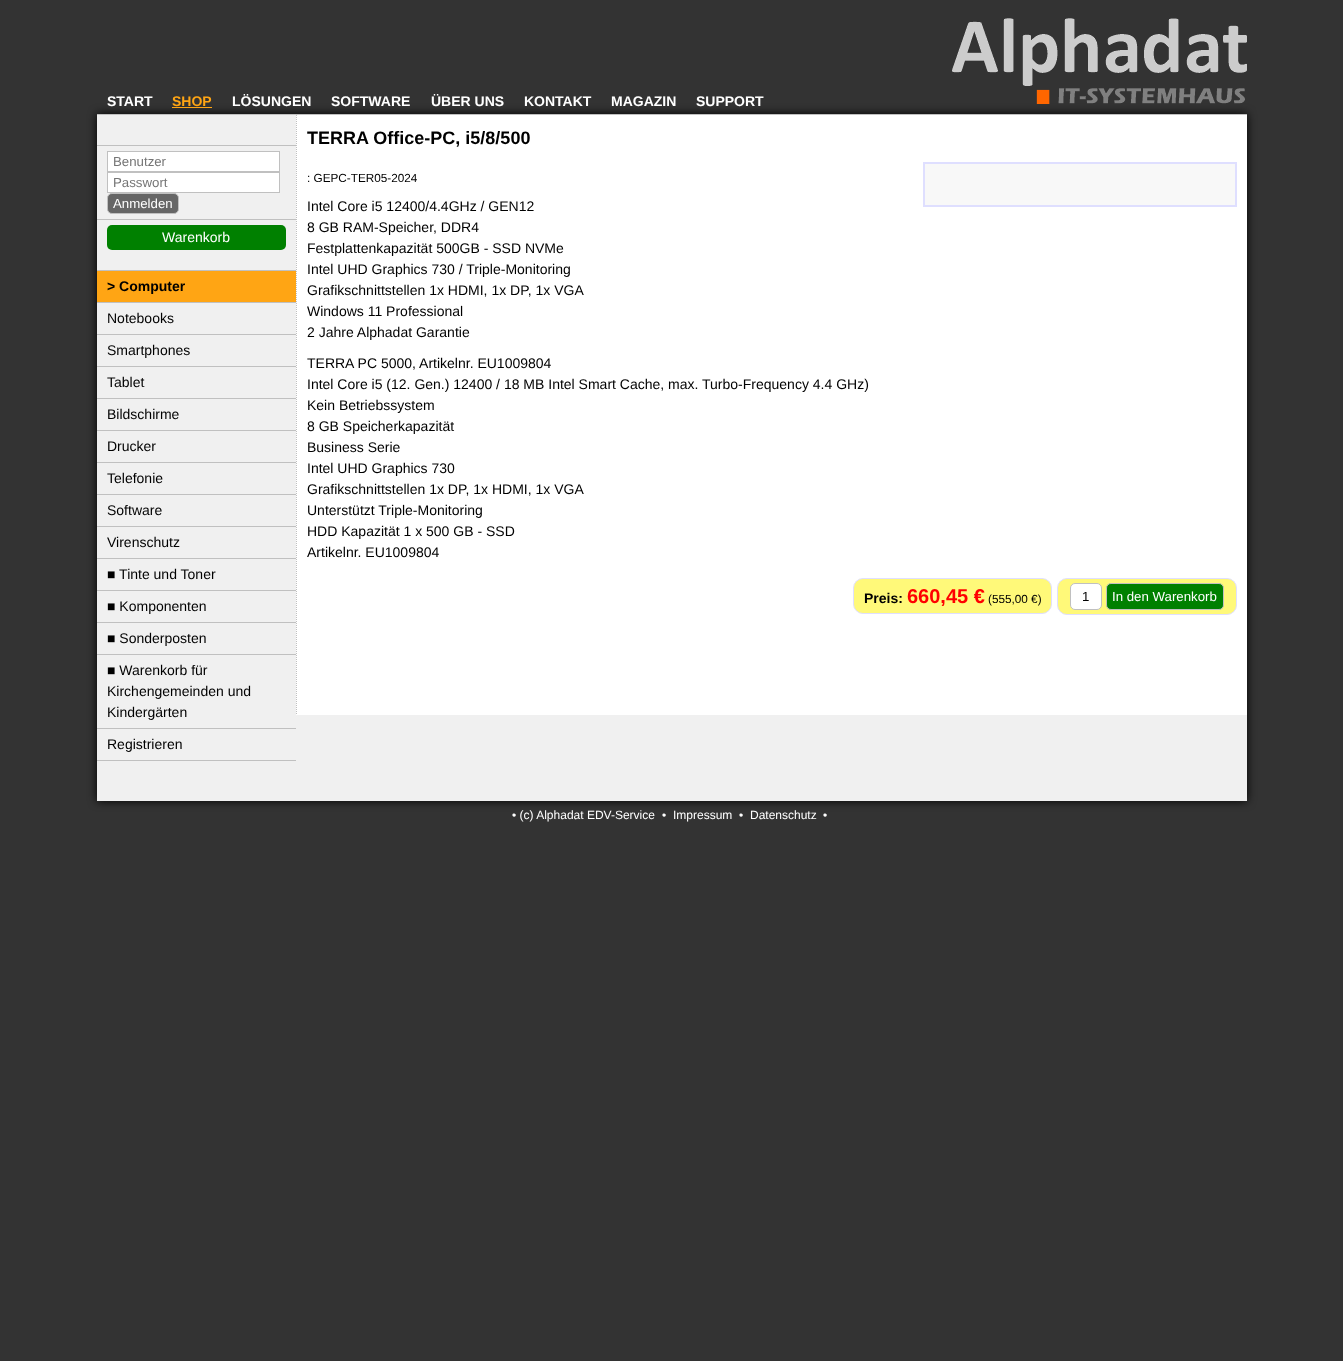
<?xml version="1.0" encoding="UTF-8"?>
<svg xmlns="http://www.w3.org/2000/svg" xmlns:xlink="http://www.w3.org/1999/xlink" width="1343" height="1361">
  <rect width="100%" height="100%" fill="#333333" />
  <rect x="97" y="114" width="1150" height="687" fill="#000000" filter="blur(5px)" />
  <rect x="172" y="107" width="40" height="1" fill="#ffa514" />
  <image x="952" y="18" width="295" height="86" xlink:href="image1.png" />
  <rect x="97" y="115" width="1150" height="686" fill="#f0f0f0" />
  <rect x="97" y="114" width="1150" height="1" fill="#c0c0c0" />
  <rect x="97" y="145" width="199" height="1" fill="#c0c0c0" />
  <rect x="107.5" y="151.5" width="172" height="20" fill="#ffffff" stroke="#c0c0c0" />
  <rect x="107.5" y="172.5" width="172" height="20" fill="#ffffff" stroke="#c0c0c0" />
  <rect x="107.5" y="193.5" width="71" height="20" rx="4.5" fill="#666666" stroke="#c0c0c0" />
  <rect x="97" y="219" width="199" height="1" fill="#c0c0c0" />
  <rect x="107" y="225" width="179" height="25" rx="5" fill="#008000" />
  <rect x="97" y="270" width="199" height="1" fill="#c0c0c0" />
  <rect x="97" y="271" width="199" height="31" fill="#ffa514" />
  <rect x="97" y="302" width="199" height="1" fill="#c0c0c0" />
  <rect x="97" y="334" width="199" height="1" fill="#c0c0c0" />
  <rect x="97" y="366" width="199" height="1" fill="#c0c0c0" />
  <rect x="97" y="398" width="199" height="1" fill="#c0c0c0" />
  <rect x="97" y="430" width="199" height="1" fill="#c0c0c0" />
  <rect x="97" y="462" width="199" height="1" fill="#c0c0c0" />
  <rect x="97" y="494" width="199" height="1" fill="#c0c0c0" />
  <rect x="97" y="526" width="199" height="1" fill="#c0c0c0" />
  <rect x="97" y="558" width="199" height="1" fill="#c0c0c0" />
  <rect x="97" y="590" width="199" height="1" fill="#c0c0c0" />
  <rect x="97" y="622" width="199" height="1" fill="#c0c0c0" />
  <rect x="97" y="654" width="199" height="1" fill="#c0c0c0" />
  <rect x="97" y="728" width="199" height="1" fill="#c0c0c0" />
  <rect x="97" y="760" width="199" height="1" fill="#c0c0c0" />
  <rect x="296" y="115" width="951" height="600" fill="#ffffff" />
  <path d="M 296.5 115 v 600" fill="none" stroke="#c0c0c0" stroke-dasharray="1 1" />
  <rect x="924" y="163" width="312" height="43" fill="#f8f8f8" stroke="#dfdfff" stroke-width="2" />
  <rect x="853.5" y="578.5" width="198" height="35" rx="9.5" fill="#fff979" stroke="#dfdfff" />
  <rect x="1057.5" y="578.5" width="179" height="36" rx="9.5" fill="#fff979" stroke="#dfdfff" />
  <rect x="1070.5" y="583.5" width="31" height="26" rx="4.5" fill="#ffffff" stroke="#c0c0c0" />
  <rect x="1106.5" y="583.5" width="117" height="26" rx="4.5" fill="#008000" stroke="#c0c0c0" />
  <text x="107" y="106" style="font-family: Liberation Sans; font-size: 14px; font-weight: bold; fill: #ffffff">START</text>
  <text x="172" y="106" style="font-family: Liberation Sans; font-size: 14px; font-weight: bold; fill: #ffa514">SHOP</text>
  <text x="232" y="106" style="font-family: Liberation Sans; font-size: 14px; font-weight: bold; fill: #ffffff">LÖSUNGEN</text>
  <text x="331" y="106" style="font-family: Liberation Sans; font-size: 14px; font-weight: bold; fill: #ffffff">SOFTWARE</text>
  <text x="431" y="106" style="font-family: Liberation Sans; font-size: 14px; font-weight: bold; fill: #ffffff">ÜBER UNS</text>
  <text x="524" y="106" style="font-family: Liberation Sans; font-size: 14px; font-weight: bold; fill: #ffffff">KONTAKT</text>
  <text x="611" y="106" style="font-family: Liberation Sans; font-size: 14px; font-weight: bold; fill: #ffffff">MAGAZIN</text>
  <text x="696" y="106" style="font-family: Liberation Sans; font-size: 14px; font-weight: bold; fill: #ffffff">SUPPORT</text>
  <text x="113" y="166" style="font-family: Liberation Sans; font-size: 13.25px; fill: #757575">Benutzer</text>
  <text x="113" y="187" style="font-family: Liberation Sans; font-size: 13.25px; fill: #757575">Passwort</text>
  <text x="113" y="208" style="font-family: Liberation Sans; font-size: 13.25px; fill: #ffffff">Anmelden</text>
  <text x="162" y="242" style="font-family: Liberation Sans; font-size: 14px; fill: #ffffff">Warenkorb</text>
  <text x="107" y="291" style="font-family: Liberation Sans; font-size: 14px; font-weight: bold; fill: #000000">&gt; Computer</text>
  <text x="107" y="323" style="font-family: Liberation Sans; font-size: 14px; fill: #000000">Notebooks</text>
  <text x="107" y="355" style="font-family: Liberation Sans; font-size: 14px; fill: #000000">Smartphones</text>
  <text x="107" y="387" style="font-family: Liberation Sans; font-size: 14px; fill: #000000">Tablet</text>
  <text x="107" y="419" style="font-family: Liberation Sans; font-size: 14px; fill: #000000">Bildschirme</text>
  <text x="107" y="451" style="font-family: Liberation Sans; font-size: 14px; fill: #000000">Drucker</text>
  <text x="107" y="483" style="font-family: Liberation Sans; font-size: 14px; fill: #000000">Telefonie</text>
  <text x="107" y="515" style="font-family: Liberation Sans; font-size: 14px; fill: #000000">Software</text>
  <text x="107" y="547" style="font-family: Liberation Sans; font-size: 14px; fill: #000000">Virenschutz</text>
  <text x="107" y="579" style="font-family: Liberation Sans; font-size: 14px; fill: #000000">■ Tinte und Toner</text>
  <text x="107" y="611" style="font-family: Liberation Sans; font-size: 14px; fill: #000000">■ Komponenten</text>
  <text x="107" y="643" style="font-family: Liberation Sans; font-size: 14px; fill: #000000">■ Sonderposten</text>
  <text x="107" y="675" style="font-family: Liberation Sans; font-size: 14px; fill: #000000">■ Warenkorb für</text>
  <text x="107" y="696" style="font-family: Liberation Sans; font-size: 14px; fill: #000000">Kirchengemeinden und</text>
  <text x="107" y="717" style="font-family: Liberation Sans; font-size: 14px; fill: #000000">Kindergärten</text>
  <text x="107" y="749" style="font-family: Liberation Sans; font-size: 14px; fill: #000000">Registrieren</text>
  <text x="307" y="144" style="font-family: Liberation Sans; font-size: 18px; font-weight: bold; fill: #000000">TERRA Office-PC, i5/8/500</text>
  <text x="307" y="182" style="font-family: Liberation Sans; font-size: 11.75px; fill: #000000">: GEPC-TER05-2024</text>
  <text x="307" y="211" style="font-family: Liberation Sans; font-size: 14px; fill: #000000">Intel Core i5 12400/4.4GHz / GEN12</text>
  <text x="307" y="232" style="font-family: Liberation Sans; font-size: 14px; fill: #000000">8 GB RAM-Speicher, DDR4</text>
  <text x="307" y="253" style="font-family: Liberation Sans; font-size: 14px; fill: #000000">Festplattenkapazität 500GB - SSD NVMe</text>
  <text x="307" y="274" style="font-family: Liberation Sans; font-size: 14px; fill: #000000">Intel UHD Graphics 730 / Triple-Monitoring</text>
  <text x="307" y="295" style="font-family: Liberation Sans; font-size: 14px; fill: #000000">Grafikschnittstellen 1x HDMI, 1x DP, 1x VGA</text>
  <text x="307" y="316" style="font-family: Liberation Sans; font-size: 14px; fill: #000000">Windows 11 Professional</text>
  <text x="307" y="337" style="font-family: Liberation Sans; font-size: 14px; fill: #000000">2 Jahre Alphadat Garantie</text>
  <text x="307" y="368" style="font-family: Liberation Sans; font-size: 14px; fill: #000000">TERRA PC 5000, Artikelnr. EU1009804</text>
  <text x="307" y="389" style="font-family: Liberation Sans; font-size: 14px; fill: #000000">Intel Core i5 (12. Gen.) 12400 / 18 MB Intel Smart Cache, max. Turbo-Frequency 4.4 GHz)</text>
  <text x="307" y="410" style="font-family: Liberation Sans; font-size: 14px; fill: #000000">Kein Betriebssystem</text>
  <text x="307" y="431" style="font-family: Liberation Sans; font-size: 14px; fill: #000000">8 GB Speicherkapazität</text>
  <text x="307" y="452" style="font-family: Liberation Sans; font-size: 14px; fill: #000000">Business Serie</text>
  <text x="307" y="473" style="font-family: Liberation Sans; font-size: 14px; fill: #000000">Intel UHD Graphics 730</text>
  <text x="307" y="494" style="font-family: Liberation Sans; font-size: 14px; fill: #000000">Grafikschnittstellen 1x DP, 1x HDMI, 1x VGA</text>
  <text x="307" y="515" style="font-family: Liberation Sans; font-size: 14px; fill: #000000">Unterstützt Triple-Monitoring</text>
  <text x="307" y="536" style="font-family: Liberation Sans; font-size: 14px; fill: #000000">HDD Kapazität 1 x 500 GB - SSD</text>
  <text x="307" y="557" style="font-family: Liberation Sans; font-size: 14px; fill: #000000">Artikelnr. EU1009804</text>
  <text x="864" y="603" style="font-family: Liberation Sans; font-size: 14px; font-weight: bold; fill: #000000">Preis:</text>
  <text x="907" y="603" style="font-family: Liberation Sans; font-size: 20px; font-weight: bold; fill: #ff0000">660,45 €</text>
  <text x="988" y="603" style="font-family: Liberation Sans; font-size: 11.75px; fill: #000000">(555,00 €)</text>
  <text x="1082" y="601" style="font-family: Liberation Sans; font-size: 13.25px; fill: #000000">1</text>
  <text x="1112" y="601" style="font-family: Liberation Sans; font-size: 13.25px; fill: #ffffff">In den Warenkorb</text>
  <text x="512" y="819" style="font-family: Liberation Sans; font-size: 12px; fill: #ffffff">• (c) Alphadat EDV-Service</text>
  <text x="662" y="819" style="font-family: Liberation Sans; font-size: 12px; fill: #ffffff">•</text>
  <text x="673" y="819" style="font-family: Liberation Sans; font-size: 12px; fill: #ffffff">Impressum</text>
  <text x="739" y="819" style="font-family: Liberation Sans; font-size: 12px; fill: #ffffff">•</text>
  <text x="750" y="819" style="font-family: Liberation Sans; font-size: 12px; fill: #ffffff">Datenschutz</text>
  <text x="823" y="819" style="font-family: Liberation Sans; font-size: 12px; fill: #ffffff">•</text>
</svg>
